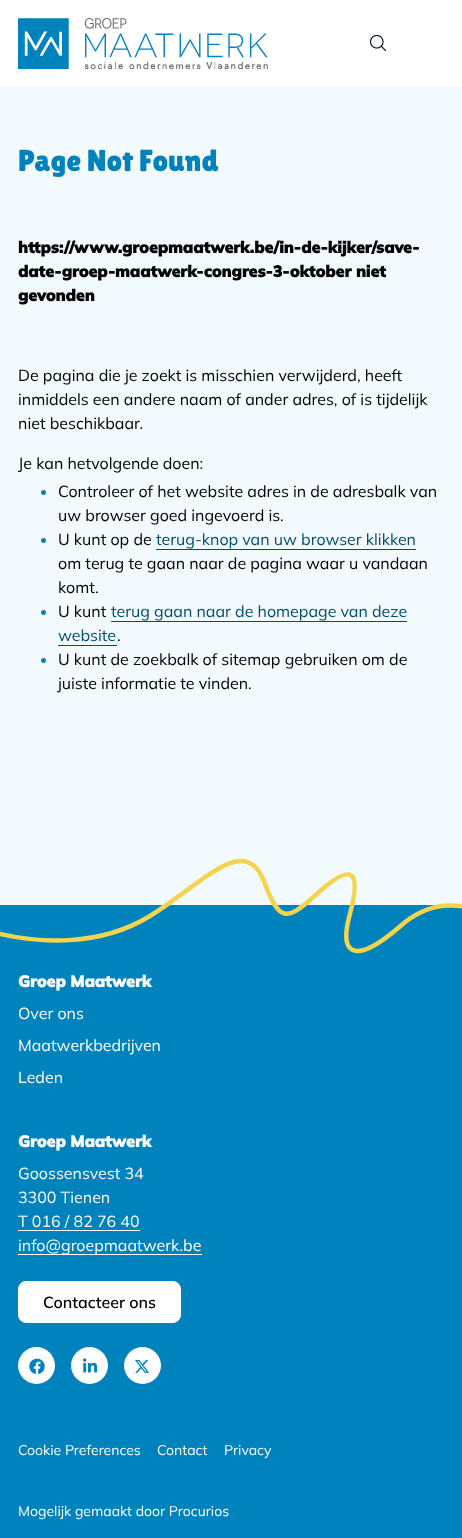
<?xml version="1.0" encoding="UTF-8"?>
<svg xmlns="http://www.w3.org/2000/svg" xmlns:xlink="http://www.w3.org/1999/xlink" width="462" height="1538">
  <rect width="100%" height="100%" fill="#f2fafd" />
  <rect width="462" height="87" fill="#ffffff" />
  <image x="18" y="18" width="250" height="52" xlink:href="image1.png" />
  <image x="369" y="34" width="18" height="18" xlink:href="image2.png" />
  <circle cx="43.5" cy="492.5" r="2.5" fill="#0082bd" />
  <circle cx="43.5" cy="540.5" r="2.5" fill="#0082bd" />
  <rect x="156" y="549" width="260" height="1" fill="#004e71" />
  <circle cx="43.5" cy="612.5" r="2.5" fill="#0082bd" />
  <rect x="111" y="621" width="296" height="1" fill="#004e71" />
  <rect x="58" y="645" width="59" height="1" fill="#004e71" />
  <circle cx="43.5" cy="660.5" r="2.5" fill="#0082bd" />
  <rect y="905" width="462" height="633" fill="#0082bd" />
  <path d="M -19.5 929 c 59.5 17 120.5 17 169.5 -13 c 53 -32.5 96 -86 115 -32 c 14 37 21.5 37.5 49.5 12 c 39.5 -36.5 47.5 -25 34.5 21.5 c -10.5 41.5 10 44.5 51.5 8.5 c 33.5 -29 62.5 -20 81.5 -16" fill="none" stroke="#f2d44e" stroke-width="4.5" />
  <rect x="18" y="1230" width="122" height="1" fill="#ffffff" />
  <rect x="18" y="1254" width="184" height="1" fill="#ffffff" />
  <rect x="18.5" y="1281.5" width="162" height="41" rx="7.5" fill="#ffffff" stroke="#ffffff" />
  <circle cx="36.5" cy="1365.5" r="18.5" fill="#ffffff" />
  <image x="29" y="1358" width="16" height="16" xlink:href="image3.png" />
  <circle cx="89.5" cy="1365.5" r="18.5" fill="#ffffff" />
  <image x="83" y="1358" width="14" height="15" xlink:href="image4.png" />
  <circle cx="142.5" cy="1365.5" r="18.5" fill="#ffffff" />
  <image x="135" y="1359" width="15" height="14" xlink:href="image5.png" />
  <text x="18" y="171" style="font-family: Lilita One; font-size: 30.5px; fill: #0082bd">Page Not Found</text>
  <text x="18" y="253" style="font-family: Mulish; font-size: 16px; font-weight: bold; fill: #000000">https://www.groepmaatwerk.be/in-de-kijker/save-</text>
  <text x="18" y="277" style="font-family: Mulish; font-size: 16px; font-weight: bold; fill: #000000">date-groep-maatwerk-congres-3-oktober niet</text>
  <text x="18" y="301" style="font-family: Mulish; font-size: 16px; font-weight: bold; fill: #000000">gevonden</text>
  <text x="18" y="381" style="font-family: Mulish; font-size: 16px; font-weight: 200; fill: #000000">De pagina die je zoekt is misschien verwijderd, heeft</text>
  <text x="18" y="405" style="font-family: Mulish; font-size: 16px; font-weight: 200; fill: #000000">inmiddels een andere naam of ander adres, of is tijdelijk</text>
  <text x="18" y="429" style="font-family: Mulish; font-size: 16px; font-weight: 200; fill: #000000">niet beschikbaar.</text>
  <text x="18" y="469" style="font-family: Mulish; font-size: 16px; font-weight: 200; fill: #000000">Je kan hetvolgende doen:</text>
  <text x="58" y="497" style="font-family: Mulish; font-size: 16px; font-weight: 200; fill: #000000">Controleer of het website adres in de adresbalk van</text>
  <text x="58" y="521" style="font-family: Mulish; font-size: 16px; font-weight: 200; fill: #000000">uw browser goed ingevoerd is.</text>
  <text x="58" y="545" style="font-family: Mulish; font-size: 16px; font-weight: 200; fill: #000000">U kunt op de</text>
  <text x="156" y="545" style="font-family: Mulish; font-size: 16px; font-weight: 200; fill: #004e71">terug-knop van uw browser klikken</text>
  <text x="58" y="569" style="font-family: Mulish; font-size: 16px; font-weight: 200; fill: #000000">om terug te gaan naar de pagina waar u vandaan</text>
  <text x="58" y="593" style="font-family: Mulish; font-size: 16px; font-weight: 200; fill: #000000">komt.</text>
  <text x="58" y="617" style="font-family: Mulish; font-size: 16px; font-weight: 200; fill: #000000">U kunt</text>
  <text x="111" y="617" style="font-family: Mulish; font-size: 16px; font-weight: 200; fill: #004e71">terug gaan naar de homepage van deze</text>
  <text x="58" y="641" style="font-family: Mulish; font-size: 16px; font-weight: 200; fill: #004e71">website</text>
  <text x="117" y="641" style="font-family: Mulish; font-size: 16px; font-weight: 200; fill: #000000">.</text>
  <text x="58" y="665" style="font-family: Mulish; font-size: 16px; font-weight: 200; fill: #000000">U kunt de zoekbalk of sitemap gebruiken om de</text>
  <text x="58" y="689" style="font-family: Mulish; font-size: 16px; font-weight: 200; fill: #000000">juiste informatie te vinden.</text>
  <text x="18" y="987" style="font-family: Mulish; font-size: 16px; font-weight: bold; fill: #ffffff">Groep Maatwerk</text>
  <text x="18" y="1019" style="font-family: Mulish; font-size: 16px; font-weight: 200; fill: #ffffff">Over ons</text>
  <text x="18" y="1051" style="font-family: Mulish; font-size: 16px; font-weight: 200; fill: #ffffff">Maatwerkbedrijven</text>
  <text x="18" y="1083" style="font-family: Mulish; font-size: 16px; font-weight: 200; fill: #ffffff">Leden</text>
  <text x="18" y="1147" style="font-family: Mulish; font-size: 16px; font-weight: bold; fill: #ffffff">Groep Maatwerk</text>
  <text x="18" y="1179" style="font-family: Mulish; font-size: 16px; font-weight: 200; fill: #ffffff">Goossensvest 34</text>
  <text x="18" y="1203" style="font-family: Mulish; font-size: 16px; font-weight: 200; fill: #ffffff">3300 Tienen</text>
  <text x="18" y="1227" style="font-family: Mulish; font-size: 16px; font-weight: 200; fill: #ffffff">T 016 / 82 76 40</text>
  <text x="18" y="1251" style="font-family: Mulish; font-size: 16px; font-weight: 200; fill: #ffffff">info@groepmaatwerk.be</text>
  <text x="43" y="1308" style="font-family: 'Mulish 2'; font-size: 16px; font-weight: 200; fill: #000000">Contacteer ons</text>
  <text x="18" y="1455" style="font-family: Mulish; font-size: 14px; font-weight: 200; fill: #ffffff">Cookie Preferences</text>
  <text x="157" y="1455" style="font-family: Mulish; font-size: 14px; font-weight: 200; fill: #ffffff">Contact</text>
  <text x="224" y="1455" style="font-family: Mulish; font-size: 14px; font-weight: 200; fill: #ffffff">Privacy</text>
  <text x="18" y="1516" style="font-family: Mulish; font-size: 14px; font-weight: 200; fill: #ffffff">Mogelijk gemaakt door Procurios</text>
</svg>
